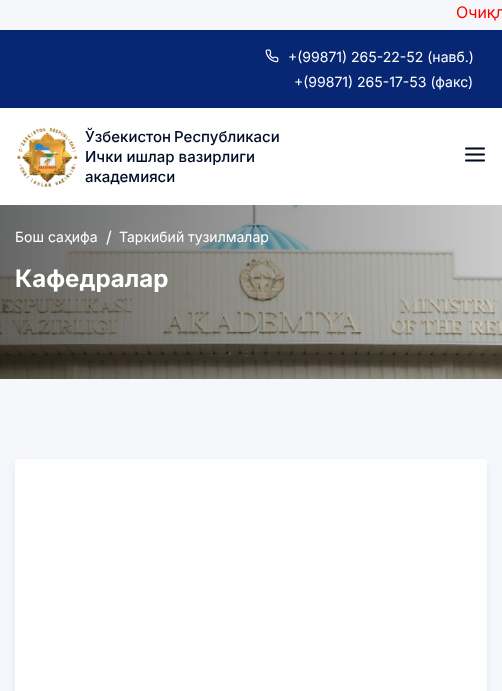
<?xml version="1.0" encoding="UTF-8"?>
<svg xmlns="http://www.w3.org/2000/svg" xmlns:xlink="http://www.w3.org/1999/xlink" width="502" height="691">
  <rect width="100%" height="100%" fill="#f5f7fb" />
  <rect y="30" width="502" height="78" fill="#072673" />
  <image x="265" y="49" width="14" height="14" xlink:href="image1.png" />
  <rect y="108" width="502" height="97" fill="#ffffff" />
  <image x="17" y="127" width="61" height="61" xlink:href="image2.png" />
  <image x="465" y="147" width="20" height="15" xlink:href="image3.png" />
  <image x="0" y="205" width="502" height="174" xlink:href="image4.png" />
  <rect x="15" y="463" width="472" height="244" rx="4" fill="#0a4aa8" fill-opacity="0.08" filter="blur(4px)" />
  <rect x="15" y="459" width="472" height="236" rx="4" fill="#ffffff" />
  <text x="456" y="18" style="font-family: 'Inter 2'; font-size: 16px; fill: #ff0000">Очиқл</text>
  <text x="288" y="62" style="font-family: Inter; font-size: 14px; fill: #ffffff">+(99871) 265-22-52 (навб.)</text>
  <text x="294" y="87" style="font-family: Inter; font-size: 14px; fill: #ffffff">+(99871) 265-17-53 (факс)</text>
  <text x="85" y="142" word-spacing="-1" style="font-family: Inter; font-size: 15px; font-weight: 500; fill: #010b23">Ўзбекистон Республикаси</text>
  <text x="85" y="162" style="font-family: Inter; font-size: 15px; font-weight: 500; fill: #010b23">Ички ишлар вазирлиги</text>
  <text x="85" y="182" style="font-family: Inter; font-size: 15px; font-weight: 500; fill: #010b23">академияси</text>
  <text x="15" y="242" style="font-family: Inter; font-size: 14px; fill: #ffffff">Бош саҳифа</text>
  <text x="106" y="243" style="font-family: 'Inter 2'; font-size: 16px; fill: #ffffff">/</text>
  <text x="119" y="242" style="font-family: Inter; font-size: 14px; fill: #ffffff">Таркибий тузилмалар</text>
  <text x="15" y="287" style="font-family: Inter; font-size: 24px; font-weight: bold; fill: #ffffff">Кафедралар</text>
</svg>
